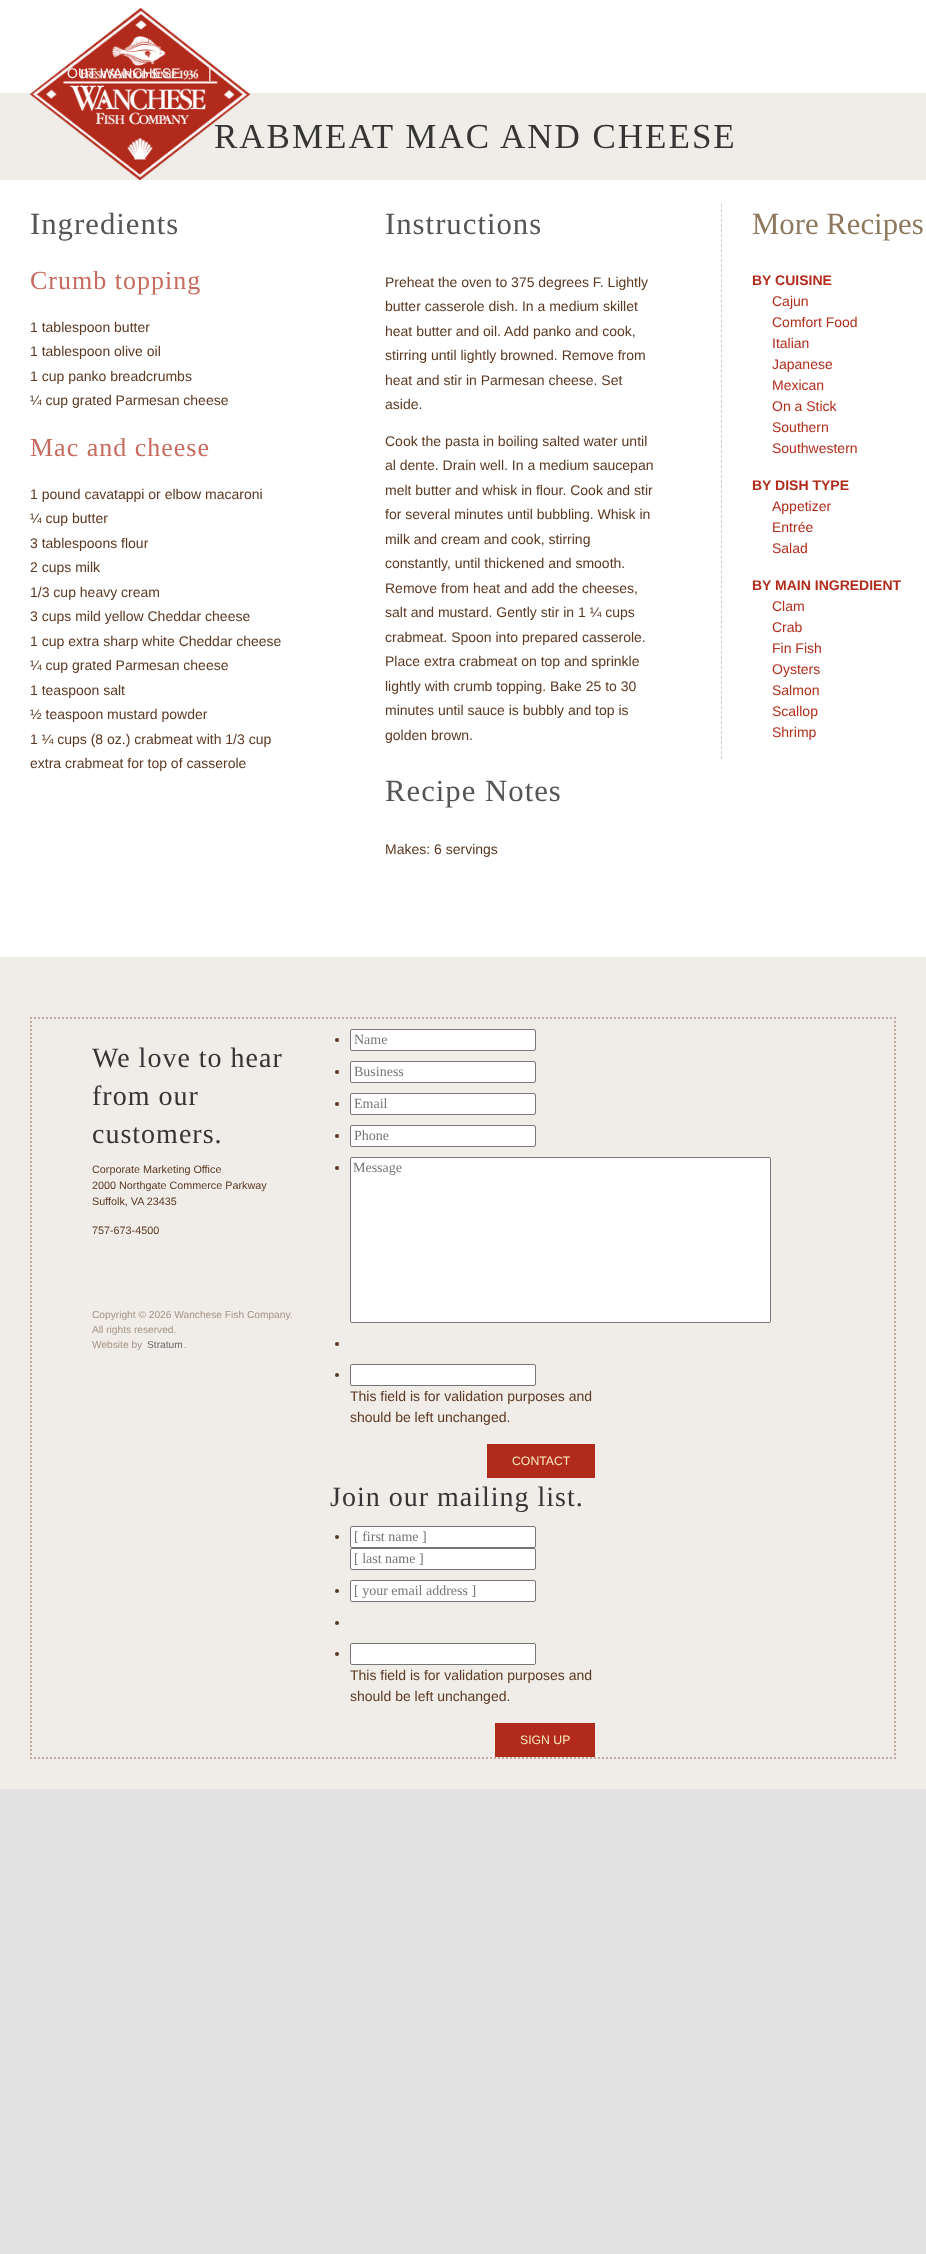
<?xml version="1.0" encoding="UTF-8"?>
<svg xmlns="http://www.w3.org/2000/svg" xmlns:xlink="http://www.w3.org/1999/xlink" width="926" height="2254">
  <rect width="100%" height="100%" fill="#e2e2e2" />
  <rect width="926" height="957" fill="#ffffff" />
  <rect y="93" width="926" height="87" fill="#f0ede8" />
  <path d="M 721.5 204 v 555" fill="none" stroke="#cccccc" stroke-dasharray="3 2.02" />
  <rect y="957" width="926" height="832" fill="#f0ede8" />
  <path d="M 30 1018 h 866" fill="none" stroke="#beac9f" stroke-width="2" stroke-dasharray="2 2" />
  <path d="M 895 1017 v 742" fill="none" stroke="#beac9f" stroke-width="2" stroke-dasharray="2 2" />
  <path d="M 30 1758 h 866" fill="none" stroke="#beac9f" stroke-width="2" stroke-dasharray="2 2" />
  <path d="M 31 1017 v 742" fill="none" stroke="#beac9f" stroke-width="2" stroke-dasharray="2 2" />
  <circle cx="337" cy="1040" r="2" fill="#5b3821" />
  <rect x="350.5" y="1029.5" width="185" height="21" rx="1.5" fill="#ffffff" stroke="#767676" />
  <circle cx="337" cy="1072" r="2" fill="#5b3821" />
  <rect x="350.5" y="1061.5" width="185" height="21" rx="1.5" fill="#ffffff" stroke="#767676" />
  <circle cx="337" cy="1104" r="2" fill="#5b3821" />
  <rect x="350.5" y="1093.5" width="185" height="21" rx="1.5" fill="#ffffff" stroke="#767676" />
  <circle cx="337" cy="1136" r="2" fill="#5b3821" />
  <rect x="350.5" y="1125.5" width="185" height="21" rx="1.5" fill="#ffffff" stroke="#767676" />
  <circle cx="337" cy="1168" r="2" fill="#5b3821" />
  <rect x="350.5" y="1157.5" width="420" height="165" rx="1.5" fill="#ffffff" stroke="#767676" />
  <circle cx="337" cy="1344" r="2" fill="#5b3821" />
  <circle cx="337" cy="1375" r="2" fill="#5b3821" />
  <rect x="350.5" y="1364.5" width="185" height="21" rx="1.5" fill="#ffffff" stroke="#767676" />
  <rect x="487" y="1444" width="108" height="34" fill="#b22a1c" />
  <circle cx="337" cy="1537" r="2" fill="#5b3821" />
  <rect x="350.5" y="1526.5" width="185" height="21" rx="1.5" fill="#ffffff" stroke="#767676" />
  <rect x="350.5" y="1548.5" width="185" height="21" rx="1.5" fill="#ffffff" stroke="#767676" />
  <circle cx="337" cy="1591" r="2" fill="#5b3821" />
  <rect x="350.5" y="1580.5" width="185" height="21" rx="1.5" fill="#ffffff" stroke="#767676" />
  <circle cx="337" cy="1623" r="2" fill="#5b3821" />
  <circle cx="337" cy="1654" r="2" fill="#5b3821" />
  <rect x="350.5" y="1643.5" width="185" height="21" rx="1.5" fill="#ffffff" stroke="#767676" />
  <rect x="495" y="1723" width="100" height="34" fill="#b22a1c" />
  <text x="214" y="148" style="font-family: Liberation Serif; font-size: 35px; letter-spacing: 2px; fill: #353535">RABMEAT MAC AND CHEESE</text>
  <image x="30" y="8" width="220" height="172" xlink:href="image1.png" />
  <text x="208" y="78" style="font-family: Liberation Sans; font-size: 14px; fill: #ffffff">|</text>
  <text x="67" y="78" style="font-family: Liberation Sans; font-size: 14px; fill: #ffffff">OUT WANCHESE</text>
  <text x="30" y="234" style="font-family: Liberation Serif; font-size: 30.75px; letter-spacing: 1px; fill: #555555">Ingredients</text>
  <text x="30" y="289" style="font-family: Liberation Serif; font-size: 26px; letter-spacing: 1px; fill: #c86b5f">Crumb topping</text>
  <text x="30" y="332" style="font-family: Liberation Sans; font-size: 14px; fill: #5b3821">1 tablespoon butter</text>
  <text x="30" y="356" style="font-family: Liberation Sans; font-size: 14px; fill: #5b3821">1 tablespoon olive oil</text>
  <text x="30" y="381" style="font-family: Liberation Sans; font-size: 14px; fill: #5b3821">1 cup panko breadcrumbs</text>
  <text x="30" y="405" style="font-family: Liberation Sans; font-size: 14px; fill: #5b3821">¼ cup grated Parmesan cheese</text>
  <text x="30" y="456" style="font-family: Liberation Serif; font-size: 26px; letter-spacing: 1px; fill: #c86b5f">Mac and cheese</text>
  <text x="30" y="499" style="font-family: Liberation Sans; font-size: 14px; fill: #5b3821">1 pound cavatappi or elbow macaroni</text>
  <text x="30" y="523" style="font-family: Liberation Sans; font-size: 14px; fill: #5b3821">¼ cup butter</text>
  <text x="30" y="548" style="font-family: Liberation Sans; font-size: 14px; fill: #5b3821">3 tablespoons flour</text>
  <text x="30" y="572" style="font-family: Liberation Sans; font-size: 14px; fill: #5b3821">2 cups milk</text>
  <text x="30" y="597" style="font-family: Liberation Sans; font-size: 14px; fill: #5b3821">1/3 cup heavy cream</text>
  <text x="30" y="621" style="font-family: Liberation Sans; font-size: 14px; fill: #5b3821">3 cups mild yellow Cheddar cheese</text>
  <text x="30" y="646" style="font-family: Liberation Sans; font-size: 14px; fill: #5b3821">1 cup extra sharp white Cheddar cheese</text>
  <text x="30" y="670" style="font-family: Liberation Sans; font-size: 14px; fill: #5b3821">¼ cup grated Parmesan cheese</text>
  <text x="30" y="695" style="font-family: Liberation Sans; font-size: 14px; fill: #5b3821">1 teaspoon salt</text>
  <text x="30" y="719" style="font-family: Liberation Sans; font-size: 14px; fill: #5b3821">½ teaspoon mustard powder</text>
  <text x="30" y="744" style="font-family: Liberation Sans; font-size: 14px; fill: #5b3821">1 ¼ cups (8 oz.) crabmeat with 1/3 cup</text>
  <text x="30" y="768" style="font-family: Liberation Sans; font-size: 14px; fill: #5b3821">extra crabmeat for top of casserole</text>
  <text x="385" y="234" style="font-family: Liberation Serif; font-size: 30.75px; letter-spacing: 1px; fill: #555555">Instructions</text>
  <text x="385" y="287" style="font-family: Liberation Sans; font-size: 14px; fill: #5b3821">Preheat the oven to 375 degrees F. Lightly</text>
  <text x="385" y="311" style="font-family: Liberation Sans; font-size: 14px; fill: #5b3821">butter casserole dish. In a medium skillet</text>
  <text x="385" y="336" style="font-family: Liberation Sans; font-size: 14px; fill: #5b3821">heat butter and oil. Add panko and cook,</text>
  <text x="385" y="360" style="font-family: Liberation Sans; font-size: 14px; fill: #5b3821">stirring until lightly browned. Remove from</text>
  <text x="385" y="385" style="font-family: Liberation Sans; font-size: 14px; fill: #5b3821">heat and stir in Parmesan cheese. Set</text>
  <text x="385" y="409" style="font-family: Liberation Sans; font-size: 14px; fill: #5b3821">aside.</text>
  <text x="385" y="446" style="font-family: Liberation Sans; font-size: 14px; fill: #5b3821">Cook the pasta in boiling salted water until</text>
  <text x="385" y="470" style="font-family: Liberation Sans; font-size: 14px; fill: #5b3821">al dente. Drain well. In a medium saucepan</text>
  <text x="385" y="495" style="font-family: Liberation Sans; font-size: 14px; fill: #5b3821">melt butter and whisk in flour. Cook and stir</text>
  <text x="385" y="519" style="font-family: Liberation Sans; font-size: 14px; fill: #5b3821">for several minutes until bubbling. Whisk in</text>
  <text x="385" y="544" style="font-family: Liberation Sans; font-size: 14px; fill: #5b3821">milk and cream and cook, stirring</text>
  <text x="385" y="568" style="font-family: Liberation Sans; font-size: 14px; fill: #5b3821">constantly, until thickened and smooth.</text>
  <text x="385" y="593" style="font-family: Liberation Sans; font-size: 14px; fill: #5b3821">Remove from heat and add the cheeses,</text>
  <text x="385" y="617" style="font-family: Liberation Sans; font-size: 14px; fill: #5b3821">salt and mustard. Gently stir in 1 ¼ cups</text>
  <text x="385" y="642" style="font-family: Liberation Sans; font-size: 14px; fill: #5b3821">crabmeat. Spoon into prepared casserole.</text>
  <text x="385" y="666" style="font-family: Liberation Sans; font-size: 14px; fill: #5b3821">Place extra crabmeat on top and sprinkle</text>
  <text x="385" y="691" style="font-family: Liberation Sans; font-size: 14px; fill: #5b3821">lightly with crumb topping. Bake 25 to 30</text>
  <text x="385" y="715" style="font-family: Liberation Sans; font-size: 14px; fill: #5b3821">minutes until sauce is bubbly and top is</text>
  <text x="385" y="740" style="font-family: Liberation Sans; font-size: 14px; fill: #5b3821">golden brown.</text>
  <text x="385" y="801" style="font-family: Liberation Serif; font-size: 30.75px; letter-spacing: 1px; fill: #555555">Recipe Notes</text>
  <text x="385" y="854" style="font-family: Liberation Sans; font-size: 14px; fill: #5b3821">Makes: 6 servings</text>
  <text x="752" y="234" style="font-family: Liberation Serif; font-size: 30.75px; fill: #8f795e">More Recipes</text>
  <text x="752" y="285" style="font-family: Liberation Sans; font-size: 14px; font-weight: bold; fill: #b12c1b">BY CUISINE</text>
  <text x="772" y="306" style="font-family: Liberation Sans; font-size: 14px; fill: #b12c1b">Cajun</text>
  <text x="772" y="327" style="font-family: Liberation Sans; font-size: 14px; fill: #b12c1b">Comfort Food</text>
  <text x="772" y="348" style="font-family: Liberation Sans; font-size: 14px; fill: #b12c1b">Italian</text>
  <text x="772" y="369" style="font-family: Liberation Sans; font-size: 14px; fill: #b12c1b">Japanese</text>
  <text x="772" y="390" style="font-family: Liberation Sans; font-size: 14px; fill: #b12c1b">Mexican</text>
  <text x="772" y="411" style="font-family: Liberation Sans; font-size: 14px; fill: #b12c1b">On a Stick</text>
  <text x="772" y="432" style="font-family: Liberation Sans; font-size: 14px; fill: #b12c1b">Southern</text>
  <text x="772" y="453" style="font-family: Liberation Sans; font-size: 14px; fill: #b12c1b">Southwestern</text>
  <text x="752" y="490" style="font-family: Liberation Sans; font-size: 14px; font-weight: bold; fill: #b12c1b">BY DISH TYPE</text>
  <text x="772" y="511" style="font-family: Liberation Sans; font-size: 14px; fill: #b12c1b">Appetizer</text>
  <text x="772" y="532" style="font-family: Liberation Sans; font-size: 14px; fill: #b12c1b">Entrée</text>
  <text x="772" y="553" style="font-family: Liberation Sans; font-size: 14px; fill: #b12c1b">Salad</text>
  <text x="752" y="590" style="font-family: Liberation Sans; font-size: 14px; font-weight: bold; fill: #b12c1b">BY MAIN INGREDIENT</text>
  <text x="772" y="611" style="font-family: Liberation Sans; font-size: 14px; fill: #b12c1b">Clam</text>
  <text x="772" y="632" style="font-family: Liberation Sans; font-size: 14px; fill: #b12c1b">Crab</text>
  <text x="772" y="653" style="font-family: Liberation Sans; font-size: 14px; fill: #b12c1b">Fin Fish</text>
  <text x="772" y="674" style="font-family: Liberation Sans; font-size: 14px; fill: #b12c1b">Oysters</text>
  <text x="772" y="695" style="font-family: Liberation Sans; font-size: 14px; fill: #b12c1b">Salmon</text>
  <text x="772" y="716" style="font-family: Liberation Sans; font-size: 14px; fill: #b12c1b">Scallop</text>
  <text x="772" y="737" style="font-family: Liberation Sans; font-size: 14px; fill: #b12c1b">Shrimp</text>
  <text x="92" y="1067" style="font-family: Liberation Serif; font-size: 28px; letter-spacing: 1px; fill: #353535">We love to hear</text>
  <text x="92" y="1105" style="font-family: Liberation Serif; font-size: 28px; letter-spacing: 1px; fill: #353535">from our</text>
  <text x="92" y="1143" style="font-family: Liberation Serif; font-size: 28px; letter-spacing: 1px; fill: #353535">customers.</text>
  <text x="92" y="1173" style="font-family: Liberation Sans; font-size: 10.8px; fill: #5b3821">Corporate Marketing Office</text>
  <text x="92" y="1189" style="font-family: Liberation Sans; font-size: 10.8px; fill: #5b3821">2000 Northgate Commerce Parkway</text>
  <text x="92" y="1205" style="font-family: Liberation Sans; font-size: 10.8px; fill: #5b3821">Suffolk, VA 23435</text>
  <text x="92" y="1234" style="font-family: Liberation Sans; font-size: 10.8px; fill: #5b3821">757-673-4500</text>
  <text x="92" y="1318" style="font-family: Liberation Sans; font-size: 10.2px; fill: #a69384">Copyright © 2026 Wanchese Fish Company.</text>
  <text x="92" y="1333" style="font-family: Liberation Sans; font-size: 10.2px; fill: #a69384">All rights reserved.</text>
  <text x="92" y="1348" style="font-family: Liberation Sans; font-size: 10.2px; fill: #a69384">Website by</text>
  <text x="147" y="1348" style="font-family: Liberation Sans; font-size: 10.2px; fill: #666666">Stratum</text>
  <text x="184" y="1348" style="font-family: Liberation Sans; font-size: 10.2px; fill: #a69384">.</text>
  <text x="354" y="1044" style="font-family: Liberation Serif; font-size: 14px; fill: #757575">Name</text>
  <text x="354" y="1076" style="font-family: Liberation Serif; font-size: 14px; fill: #757575">Business</text>
  <text x="354" y="1108" style="font-family: Liberation Serif; font-size: 14px; fill: #757575">Email</text>
  <text x="354" y="1140" style="font-family: Liberation Serif; font-size: 14px; fill: #757575">Phone</text>
  <text x="353" y="1172" style="font-family: Liberation Serif; font-size: 14px; fill: #757575">Message</text>
  <text x="350" y="1401" style="font-family: Liberation Sans; font-size: 14px; fill: #5b3821">This field is for validation purposes and</text>
  <text x="350" y="1422" style="font-family: Liberation Sans; font-size: 14px; fill: #5b3821">should be left unchanged.</text>
  <text x="512" y="1465" style="font-family: Liberation Sans; font-size: 12.25px; fill: #f7e9c1">CONTACT</text>
  <text x="330" y="1506" style="font-family: Liberation Serif; font-size: 28px; letter-spacing: 1px; fill: #353535">Join our mailing list.</text>
  <text x="354" y="1541" style="font-family: Liberation Serif; font-size: 14px; fill: #757575">[ first name ]</text>
  <text x="354" y="1563" style="font-family: Liberation Serif; font-size: 14px; fill: #757575">[ last name ]</text>
  <text x="354" y="1595" style="font-family: Liberation Serif; font-size: 14px; fill: #757575">[ your email address ]</text>
  <text x="350" y="1680" style="font-family: Liberation Sans; font-size: 14px; fill: #5b3821">This field is for validation purposes and</text>
  <text x="350" y="1701" style="font-family: Liberation Sans; font-size: 14px; fill: #5b3821">should be left unchanged.</text>
  <text x="520" y="1744" style="font-family: Liberation Sans; font-size: 12.25px; fill: #f7e9c1">SIGN UP</text>
</svg>
